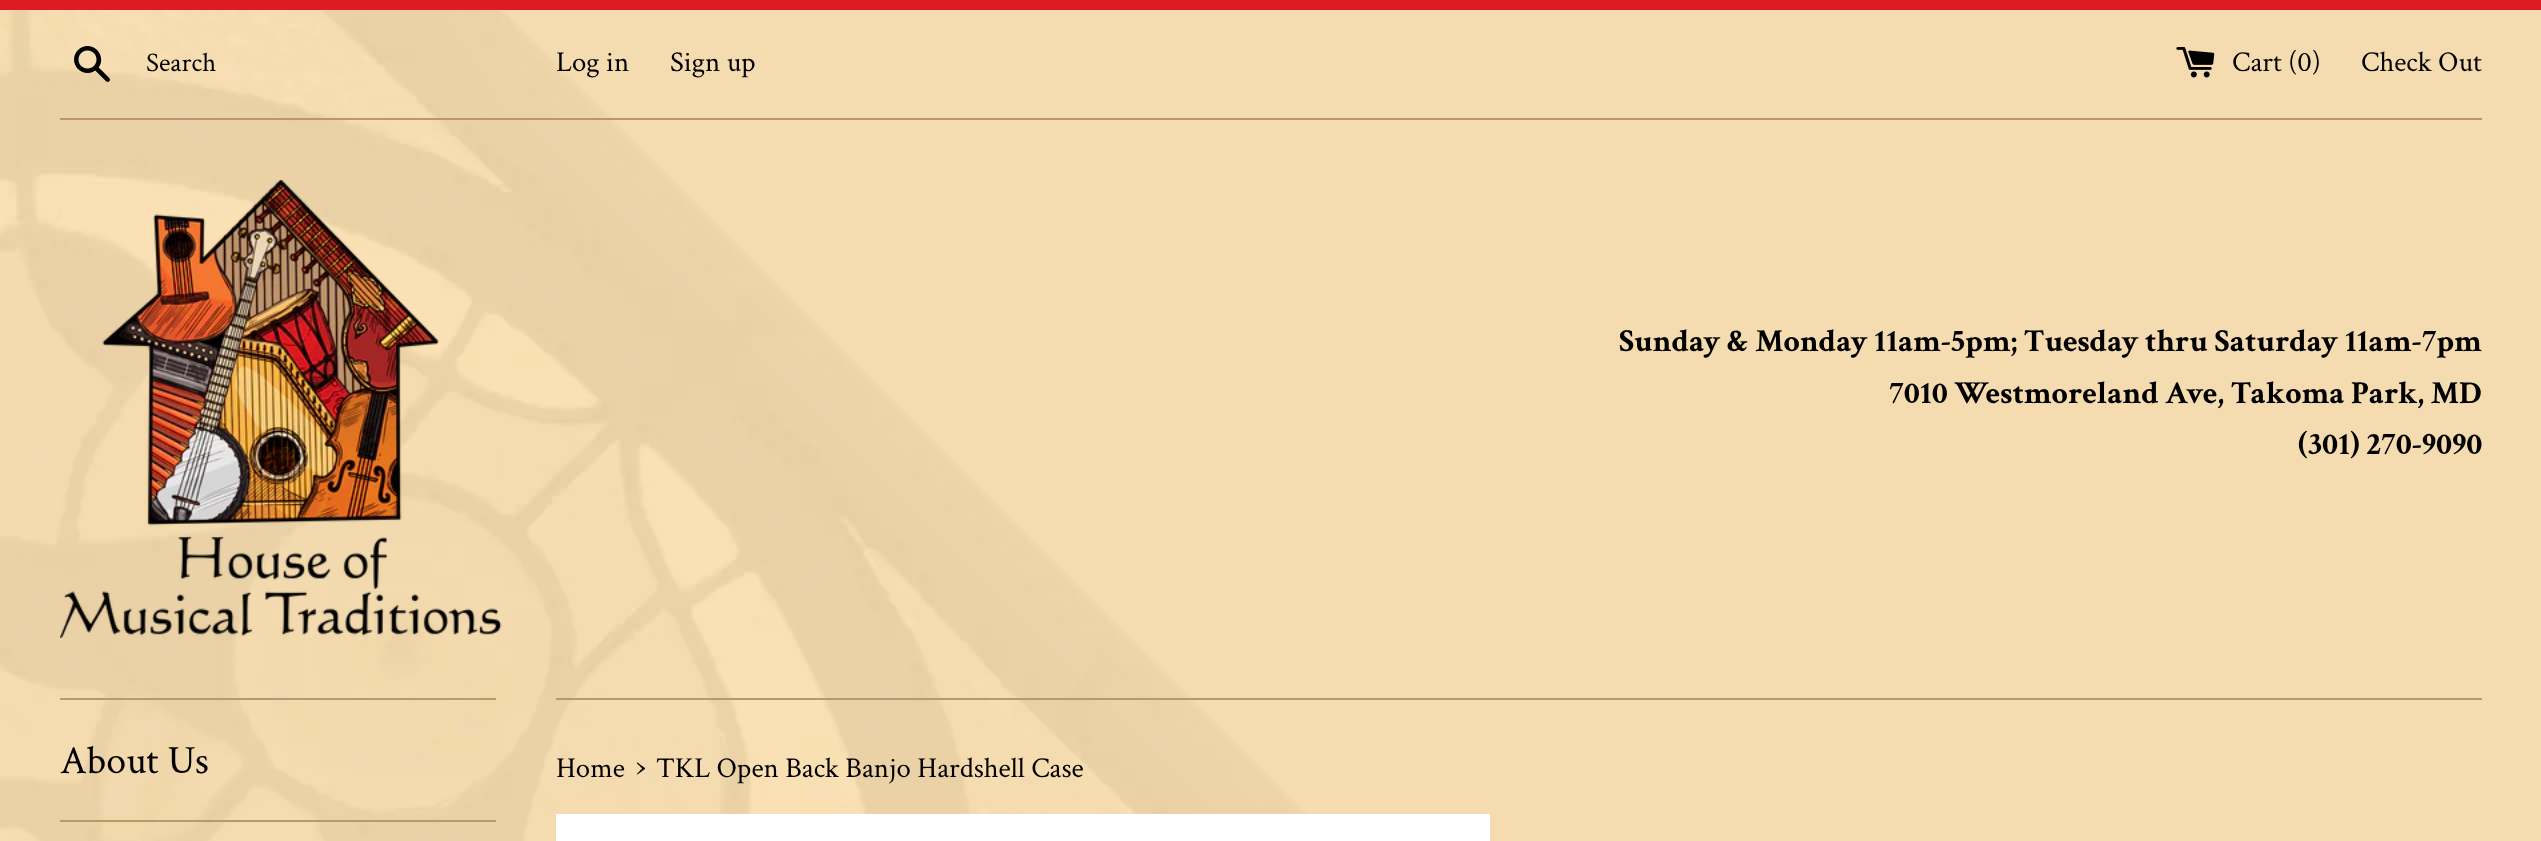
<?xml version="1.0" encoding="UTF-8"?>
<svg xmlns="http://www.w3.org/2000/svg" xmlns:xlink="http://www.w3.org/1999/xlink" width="2541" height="841">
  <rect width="100%" height="100%" fill="#f4dbb0" />
  <image x="0" y="10" width="1308" height="831" xlink:href="image1.png" />
  <rect width="2541" height="10" fill="#de1a22" />
  <image x="74" y="46" width="36" height="36" xlink:href="image2.png" />
  <image x="2176" y="47" width="39" height="31" xlink:href="image3.png" />
  <rect x="60" y="118" width="2422" height="2" fill="#bd956f" />
  <image x="60" y="180" width="442" height="458" xlink:href="image4.png" />
  <rect x="60" y="698" width="436" height="2" fill="#bd956f" />
  <rect x="60" y="820" width="436" height="2" fill="#bd956f" />
  <rect x="556" y="698" width="1926" height="2" fill="#bd956f" />
  <rect x="556" y="814" width="934" height="27" fill="#ffffff" />
  <text x="146" y="71" style="font-family: Crimson Text; font-size: 27px; fill: #000000">Search</text>
  <text x="556" y="71" style="font-family: Crimson Text; font-size: 28.75px; fill: #000000">Log in</text>
  <text x="670" y="71" style="font-family: Crimson Text; font-size: 28.75px; fill: #000000">Sign up</text>
  <text x="2232" y="71" style="font-family: Crimson Text; font-size: 28.75px; fill: #000000">Cart (0)</text>
  <text x="2361" y="71" style="font-family: Crimson Text; font-size: 28.75px; fill: #000000">Check Out</text>
  <text x="1619" y="351" style="font-family: Crimson Text; font-size: 32px; font-weight: bold; fill: #000000">Sunday &amp; Monday 11am-5pm; Tuesday thru Saturday 11am-7pm</text>
  <text x="1889" y="403" style="font-family: Crimson Text; font-size: 32px; font-weight: bold; fill: #000000">7010 Westmoreland Ave, Takoma Park, MD</text>
  <text x="2298" y="454" style="font-family: Crimson Text; font-size: 32px; font-weight: bold; fill: #000000">(301) 270-9090</text>
  <text x="60" y="773" style="font-family: Crimson Text; font-size: 40px; fill: #000000">About Us</text>
  <text x="556" y="777" style="font-family: Crimson Text; font-size: 28.75px; fill: #000000">Home</text>
  <text x="636" y="777" style="font-family: Crimson Text; font-size: 35px; fill: #000000">›</text>
  <text x="656" y="777" style="font-family: Crimson Text; font-size: 28.75px; fill: #000000">TKL Open Back Banjo Hardshell Case</text>
</svg>
